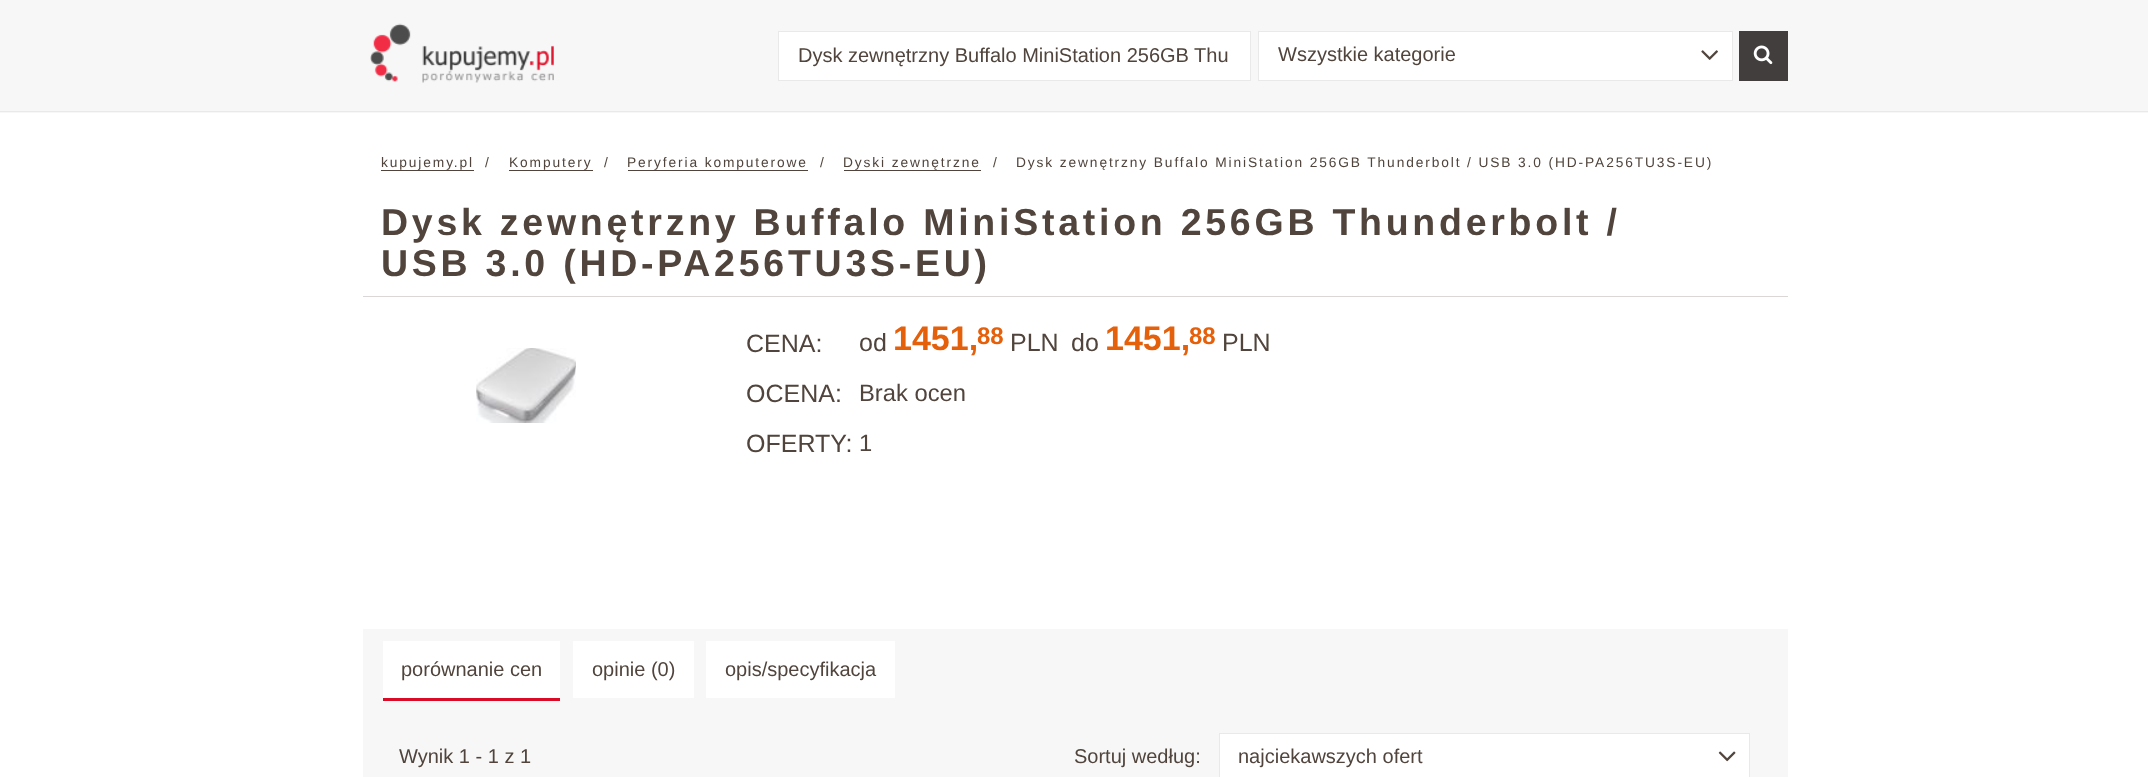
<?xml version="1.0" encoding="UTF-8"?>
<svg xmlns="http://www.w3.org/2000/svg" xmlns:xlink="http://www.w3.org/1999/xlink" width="2148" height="777">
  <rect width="100%" height="100%" fill="#ffffff" />
  <rect width="2148" height="113" fill="#f7f7f7" />
  <rect y="111" width="2148" height="1" fill="#e9e9e9" />
  <image x="370" y="23" width="184" height="60" xlink:href="image1.png" />
  <rect x="778.5" y="31.5" width="472" height="49" fill="#ffffff" stroke="#e9e9e9" />
  <rect x="1258.5" y="31.5" width="474" height="49" fill="#ffffff" stroke="#e9e9e9" />
  <image x="1701" y="50" width="17" height="10" xlink:href="image2.png" />
  <rect x="1739" y="31" width="49" height="50" fill="#423e3e" />
  <image x="1753" y="45" width="20" height="20" xlink:href="image3.png" />
  <rect x="381" y="170" width="93" height="1" fill="#50443c" />
  <rect x="509" y="170" width="84" height="1" fill="#50443c" />
  <rect x="628" y="170" width="180" height="1" fill="#50443c" />
  <rect x="844" y="170" width="137" height="1" fill="#50443c" />
  <rect x="363" y="296" width="1425" height="1" fill="#dcd7d7" />
  <image x="476" y="348" width="100" height="75" xlink:href="image4.png" />
  <rect x="363" y="629" width="1425" height="148" fill="#f7f7f7" />
  <rect x="383" y="641" width="177" height="57" fill="#ffffff" />
  <rect x="383" y="698" width="177" height="3" fill="#d90b27" />
  <rect x="573" y="641" width="121" height="57" fill="#ffffff" />
  <rect x="706" y="641" width="189" height="57" fill="#ffffff" />
  <rect x="1219.5" y="733.5" width="530" height="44" fill="#ffffff" stroke="#e9e9e9" />
  <image x="1718" y="751" width="18" height="11" xlink:href="image5.png" />
  <text x="798" y="62" style="font-family: Liberation Sans; font-size: 20px; fill: #50443c">Dysk zewnętrzny Buffalo MiniStation 256GB Thu</text>
  <text x="1278" y="61" style="font-family: Liberation Sans; font-size: 20px; fill: #50443c">Wszystkie kategorie</text>
  <text x="381" y="167" style="font-family: Liberation Sans; font-size: 13.75px; letter-spacing: 1.88px; fill: #50443c">kupujemy.pl</text>
  <text x="485" y="167" style="font-family: Liberation Sans; font-size: 13.75px; letter-spacing: 1.88px; fill: #50443c">/</text>
  <text x="509" y="167" style="font-family: Liberation Sans; font-size: 13.75px; letter-spacing: 1.88px; fill: #50443c">Komputery</text>
  <text x="604" y="167" style="font-family: Liberation Sans; font-size: 13.75px; letter-spacing: 1.88px; fill: #50443c">/</text>
  <text x="627" y="167" style="font-family: Liberation Sans; font-size: 13.75px; letter-spacing: 1.88px; fill: #50443c">Peryferia komputerowe</text>
  <text x="820" y="167" style="font-family: Liberation Sans; font-size: 13.75px; letter-spacing: 1.88px; fill: #50443c">/</text>
  <text x="843" y="167" style="font-family: Liberation Sans; font-size: 13.75px; letter-spacing: 1.88px; fill: #50443c">Dyski zewnętrzne</text>
  <text x="993" y="167" style="font-family: Liberation Sans; font-size: 13.75px; letter-spacing: 1.88px; fill: #50443c">/</text>
  <text x="1016" y="167" style="font-family: Liberation Sans; font-size: 13.75px; letter-spacing: 1.88px; fill: #50443c">Dysk zewnętrzny Buffalo MiniStation 256GB Thunderbolt / USB 3.0 (HD-PA256TU3S-EU)</text>
  <text x="381" y="235" style="font-family: Liberation Sans; font-size: 37.5px; font-weight: bold; letter-spacing: 3.75px; fill: #50443c">Dysk zewnętrzny Buffalo MiniStation 256GB Thunderbolt /</text>
  <text x="381" y="276" style="font-family: Liberation Sans; font-size: 37.5px; font-weight: bold; letter-spacing: 3.75px; fill: #50443c">USB 3.0 (HD-PA256TU3S-EU)</text>
  <text x="746" y="352" style="font-family: Liberation Sans; font-size: 25px; fill: #50443c">CENA:</text>
  <text x="859" y="351" style="font-family: Liberation Sans; font-size: 25px; fill: #50443c">od</text>
  <text x="893" y="350" style="font-family: Liberation Sans; font-size: 34px; font-weight: bold; fill: #e4600b">1451,</text>
  <text x="977" y="344" style="font-family: Liberation Sans; font-size: 24px; font-weight: bold; fill: #e4600b">88</text>
  <text x="1010" y="351" style="font-family: Liberation Sans; font-size: 25px; fill: #50443c">PLN</text>
  <text x="1071" y="351" style="font-family: Liberation Sans; font-size: 25px; fill: #50443c">do</text>
  <text x="1105" y="350" style="font-family: Liberation Sans; font-size: 34px; font-weight: bold; fill: #e4600b">1451,</text>
  <text x="1189" y="344" style="font-family: Liberation Sans; font-size: 24px; font-weight: bold; fill: #e4600b">88</text>
  <text x="1222" y="351" style="font-family: Liberation Sans; font-size: 25px; fill: #50443c">PLN</text>
  <text x="746" y="402" style="font-family: Liberation Sans; font-size: 25px; fill: #50443c">OCENA:</text>
  <text x="859" y="401" style="font-family: Liberation Sans; font-size: 23.75px; fill: #50443c">Brak ocen</text>
  <text x="746" y="452" style="font-family: Liberation Sans; font-size: 25px; fill: #50443c">OFERTY:</text>
  <text x="859" y="451" style="font-family: Liberation Sans; font-size: 23.75px; fill: #50443c">1</text>
  <text x="401" y="676" style="font-family: Liberation Sans; font-size: 20px; fill: #50443c">porównanie cen</text>
  <text x="592" y="676" style="font-family: Liberation Sans; font-size: 20px; fill: #50443c">opinie (0)</text>
  <text x="725" y="676" style="font-family: Liberation Sans; font-size: 20px; fill: #50443c">opis/specyfikacja</text>
  <text x="399" y="763" style="font-family: Liberation Sans; font-size: 20px; fill: #50443c">Wynik 1 - 1 z 1</text>
  <text x="1074" y="763" style="font-family: Liberation Sans; font-size: 20px; fill: #50443c">Sortuj według:</text>
  <text x="1238" y="763" style="font-family: Liberation Sans; font-size: 20px; fill: #50443c">najciekawszych ofert</text>
</svg>
